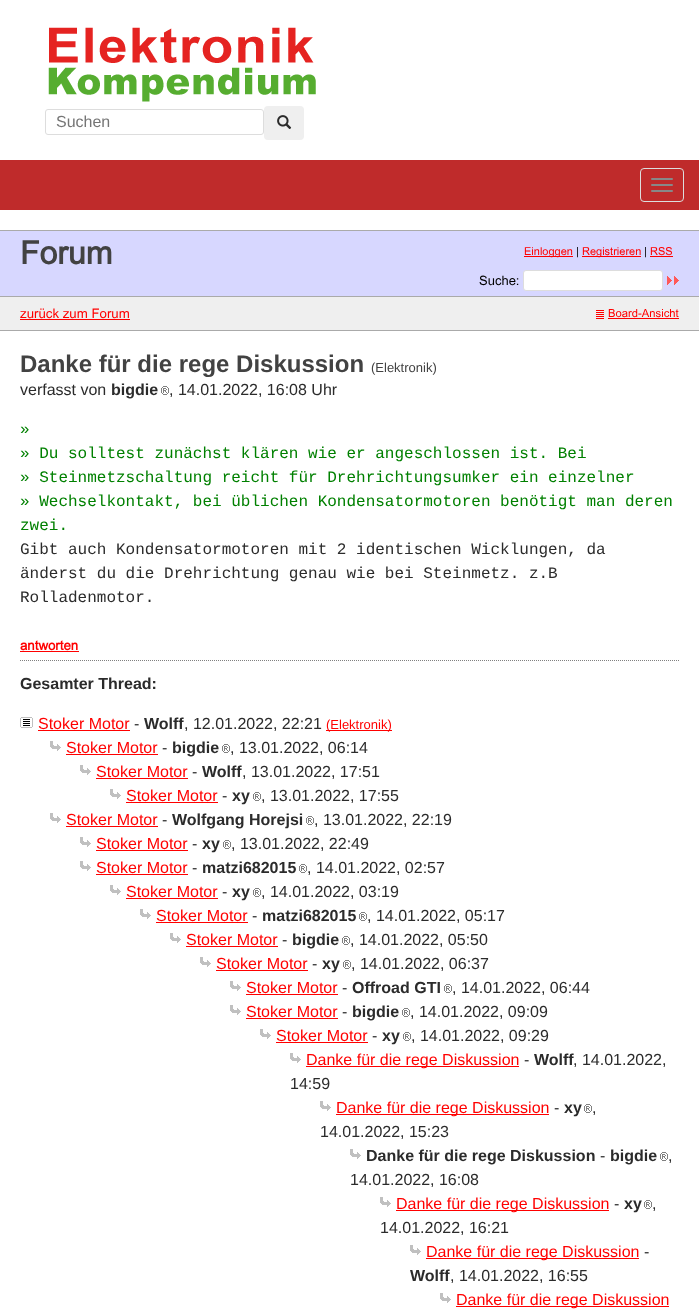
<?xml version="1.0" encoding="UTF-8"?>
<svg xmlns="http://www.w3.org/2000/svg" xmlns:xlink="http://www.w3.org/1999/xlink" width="699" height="1313">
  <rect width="100%" height="100%" fill="#ffffff" />
  <image x="48" y="27" width="268" height="75" xlink:href="image1.png" />
  <rect x="45.5" y="109.5" width="218" height="25" rx="2.5" fill="none" stroke="#dddddd" />
  <rect x="264" y="106" width="40" height="34" rx="4" fill="#efefef" />
  <image x="277" y="115" width="15" height="14" xlink:href="image2.png" />
  <rect y="160" width="699" height="50" fill="#bf2b2b" />
  <rect x="640.5" y="168.5" width="43" height="33" rx="3.5" fill="none" stroke="#dddddd" />
  <rect x="651" y="178" width="22" height="2" rx="1" fill="#888888" />
  <rect x="651" y="184" width="22" height="2" rx="1" fill="#888888" />
  <rect x="651" y="190" width="22" height="2" rx="1" fill="#888888" />
  <rect y="230" width="699" height="1" fill="#aaaaaa" />
  <rect y="231" width="699" height="65" fill="#d7d7ff" />
  <rect x="524" y="256" width="49" height="1" fill="#ff0000" />
  <rect x="582" y="256" width="59" height="1" fill="#ff0000" />
  <rect x="650" y="256" width="23" height="1" fill="#ff0000" />
  <rect x="523.5" y="270.5" width="139" height="20" rx="2.5" fill="#ffffff" stroke="#dddddd" />
  <image x="667" y="276" width="12" height="9" xlink:href="image3.png" />
  <rect y="297" width="699" height="33" fill="#efefef" />
  <rect y="296" width="699" height="1" fill="#aaaaaa" />
  <rect x="20" y="319" width="110" height="1" fill="#ff0000" />
  <image x="596" y="310" width="8" height="9" xlink:href="image4.png" />
  <rect x="608" y="318" width="71" height="1" fill="#ff0000" />
  <rect y="330" width="699" height="1" fill="#aaaaaa" />
  <image x="161" y="386" width="8" height="9" xlink:href="image5.png" />
  <rect x="20" y="651" width="59" height="1" fill="#ff0000" />
  <path d="M 20 660.5 h 659" fill="none" stroke="#808080" stroke-dasharray="1 1" />
  <image x="20" y="717" width="13" height="11" xlink:href="image6.png" />
  <rect x="38" y="730" width="92" height="1" fill="#ff0000" />
  <rect x="326" y="730" width="66" height="1" fill="#ff0000" />
  <image x="50" y="741" width="11" height="10" xlink:href="image7.png" />
  <rect x="66" y="754" width="92" height="1" fill="#ff0000" />
  <image x="222" y="744" width="8" height="9" xlink:href="image5.png" />
  <image x="80" y="765" width="11" height="10" xlink:href="image7.png" />
  <rect x="96" y="778" width="92" height="1" fill="#ff0000" />
  <image x="110" y="789" width="11" height="10" xlink:href="image7.png" />
  <rect x="126" y="802" width="92" height="1" fill="#ff0000" />
  <image x="253" y="792" width="8" height="9" xlink:href="image5.png" />
  <image x="50" y="813" width="11" height="10" xlink:href="image7.png" />
  <rect x="66" y="826" width="92" height="1" fill="#ff0000" />
  <image x="306" y="816" width="8" height="9" xlink:href="image5.png" />
  <image x="80" y="837" width="11" height="10" xlink:href="image7.png" />
  <rect x="96" y="850" width="92" height="1" fill="#ff0000" />
  <image x="223" y="840" width="8" height="9" xlink:href="image5.png" />
  <image x="80" y="861" width="11" height="10" xlink:href="image7.png" />
  <rect x="96" y="874" width="92" height="1" fill="#ff0000" />
  <image x="299" y="864" width="8" height="9" xlink:href="image5.png" />
  <image x="110" y="885" width="11" height="10" xlink:href="image7.png" />
  <rect x="126" y="898" width="92" height="1" fill="#ff0000" />
  <image x="253" y="888" width="8" height="9" xlink:href="image5.png" />
  <image x="140" y="909" width="11" height="10" xlink:href="image7.png" />
  <rect x="156" y="922" width="92" height="1" fill="#ff0000" />
  <image x="359" y="912" width="8" height="9" xlink:href="image5.png" />
  <image x="170" y="933" width="11" height="10" xlink:href="image7.png" />
  <rect x="186" y="946" width="92" height="1" fill="#ff0000" />
  <image x="342" y="936" width="8" height="9" xlink:href="image5.png" />
  <image x="200" y="957" width="11" height="10" xlink:href="image7.png" />
  <rect x="216" y="970" width="92" height="1" fill="#ff0000" />
  <image x="343" y="960" width="8" height="9" xlink:href="image5.png" />
  <image x="230" y="981" width="11" height="10" xlink:href="image7.png" />
  <rect x="246" y="994" width="92" height="1" fill="#ff0000" />
  <image x="444" y="984" width="8" height="9" xlink:href="image5.png" />
  <image x="230" y="1005" width="11" height="10" xlink:href="image7.png" />
  <rect x="246" y="1018" width="92" height="1" fill="#ff0000" />
  <image x="402" y="1008" width="8" height="9" xlink:href="image5.png" />
  <image x="260" y="1029" width="11" height="10" xlink:href="image7.png" />
  <rect x="276" y="1042" width="92" height="1" fill="#ff0000" />
  <image x="403" y="1032" width="8" height="9" xlink:href="image5.png" />
  <image x="290" y="1053" width="11" height="10" xlink:href="image7.png" />
  <rect x="306" y="1066" width="213" height="1" fill="#ff0000" />
  <image x="320" y="1101" width="11" height="10" xlink:href="image7.png" />
  <rect x="336" y="1114" width="213" height="1" fill="#ff0000" />
  <image x="584" y="1104" width="8" height="9" xlink:href="image5.png" />
  <image x="350" y="1149" width="11" height="10" xlink:href="image7.png" />
  <image x="660" y="1152" width="8" height="9" xlink:href="image5.png" />
  <image x="380" y="1197" width="11" height="10" xlink:href="image7.png" />
  <rect x="396" y="1210" width="213" height="1" fill="#ff0000" />
  <image x="644" y="1200" width="8" height="9" xlink:href="image5.png" />
  <image x="410" y="1245" width="11" height="10" xlink:href="image7.png" />
  <rect x="426" y="1258" width="213" height="1" fill="#ff0000" />
  <image x="440" y="1293" width="11" height="10" xlink:href="image7.png" />
  <rect x="456" y="1306" width="213" height="1" fill="#ff0000" />
  <text x="56" y="127" style="font-family: Liberation Sans; font-size: 16px; fill: #757575">Suchen</text>
  <text x="20" y="264" style="font-family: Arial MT; font-size: 32px; font-weight: bold; fill: #424242">Forum</text>
  <text x="524" y="255" style="font-family: Arial MT; font-size: 11px; fill: #ff0000">Einloggen</text>
  <text x="576" y="255" style="font-family: Arial MT; font-size: 11px; fill: #000000">|</text>
  <text x="582" y="255" style="font-family: Arial MT; font-size: 11px; fill: #ff0000">Registrieren</text>
  <text x="644" y="255" style="font-family: Arial MT; font-size: 11px; fill: #000000">|</text>
  <text x="650" y="255" style="font-family: Arial MT; font-size: 11px; fill: #ff0000">RSS</text>
  <text x="479" y="285" style="font-family: Arial MT; font-size: 13px; fill: #000000">Suche:</text>
  <text x="20" y="318" style="font-family: Arial MT; font-size: 13.25px; fill: #ff0000">zurück zum Forum</text>
  <text x="608" y="317" style="font-family: Arial MT; font-size: 11.25px; fill: #ff0000">Board-Ansicht</text>
  <text x="20" y="372" style="font-family: Liberation Sans; font-size: 24px; font-weight: bold; fill: #424242">Danke für die rege Diskussion</text>
  <text x="371" y="372" style="font-family: Liberation Sans; font-size: 13px; fill: #424242">(Elektronik)</text>
  <text x="20" y="395" style="font-family: Liberation Sans; font-size: 16px; fill: #2b2b2b">verfasst von</text>
  <text x="111" y="395" style="font-family: Liberation Sans; font-size: 16px; font-weight: bold; fill: #2b2b2b">bigdie</text>
  <text x="169" y="395" style="font-family: Liberation Sans; font-size: 16px; fill: #2b2b2b">, 14.01.2022, 16:08 Uhr</text>
  <text x="20" y="434" style="font-family: Liberation Mono; font-size: 16px; fill: #008000">»</text>
  <text x="20" y="458" style="font-family: Liberation Mono; font-size: 16px; fill: #008000">» Du solltest zunächst klären wie er angeschlossen ist. Bei</text>
  <text x="20" y="482" style="font-family: Liberation Mono; font-size: 16px; fill: #008000">» Steinmetzschaltung reicht für Drehrichtungsumker ein einzelner</text>
  <text x="20" y="506" style="font-family: Liberation Mono; font-size: 16px; fill: #008000">» Wechselkontakt, bei üblichen Kondensatormotoren benötigt man deren</text>
  <text x="20" y="530" style="font-family: Liberation Mono; font-size: 16px; fill: #008000">zwei.</text>
  <text x="20" y="554" style="font-family: Liberation Mono; font-size: 16px; fill: #2b2b2b">Gibt auch Kondensatormotoren mit 2 identischen Wicklungen, da</text>
  <text x="20" y="578" style="font-family: Liberation Mono; font-size: 16px; fill: #2b2b2b">änderst du die Drehrichtung genau wie bei Steinmetz. z.B</text>
  <text x="20" y="602" style="font-family: Liberation Mono; font-size: 16px; fill: #2b2b2b">Rolladenmotor.</text>
  <text x="20" y="650" style="font-family: Arial MT; font-size: 13.25px; font-weight: bold; fill: #ff0000">antworten</text>
  <text x="20" y="689" style="font-family: Liberation Sans; font-size: 16px; font-weight: bold; fill: #2b2b2b">Gesamter Thread:</text>
  <text x="38" y="729" style="font-family: Liberation Sans; font-size: 16px; fill: #ff0000">Stoker Motor</text>
  <text x="134" y="729" style="font-family: Liberation Sans; font-size: 16px; fill: #2b2b2b">-</text>
  <text x="144" y="729" style="font-family: Liberation Sans; font-size: 16px; font-weight: bold; fill: #2b2b2b">Wolff</text>
  <text x="184" y="729" style="font-family: Liberation Sans; font-size: 16px; fill: #2b2b2b">, 12.01.2022, 22:21</text>
  <text x="326" y="729" style="font-family: Liberation Sans; font-size: 13px; fill: #ff0000">(Elektronik)</text>
  <text x="66" y="753" style="font-family: Liberation Sans; font-size: 16px; fill: #ff0000">Stoker Motor</text>
  <text x="162" y="753" style="font-family: Liberation Sans; font-size: 16px; fill: #2b2b2b">-</text>
  <text x="172" y="753" style="font-family: Liberation Sans; font-size: 16px; font-weight: bold; fill: #2b2b2b">bigdie</text>
  <text x="230" y="753" style="font-family: Liberation Sans; font-size: 16px; fill: #2b2b2b">, 13.01.2022, 06:14</text>
  <text x="96" y="777" style="font-family: Liberation Sans; font-size: 16px; fill: #ff0000">Stoker Motor</text>
  <text x="192" y="777" style="font-family: Liberation Sans; font-size: 16px; fill: #2b2b2b">-</text>
  <text x="202" y="777" style="font-family: Liberation Sans; font-size: 16px; font-weight: bold; fill: #2b2b2b">Wolff</text>
  <text x="242" y="777" style="font-family: Liberation Sans; font-size: 16px; fill: #2b2b2b">, 13.01.2022, 17:51</text>
  <text x="126" y="801" style="font-family: Liberation Sans; font-size: 16px; fill: #ff0000">Stoker Motor</text>
  <text x="222" y="801" style="font-family: Liberation Sans; font-size: 16px; fill: #2b2b2b">-</text>
  <text x="232" y="801" style="font-family: Liberation Sans; font-size: 16px; font-weight: bold; fill: #2b2b2b">xy</text>
  <text x="261" y="801" style="font-family: Liberation Sans; font-size: 16px; fill: #2b2b2b">, 13.01.2022, 17:55</text>
  <text x="66" y="825" style="font-family: Liberation Sans; font-size: 16px; fill: #ff0000">Stoker Motor</text>
  <text x="162" y="825" style="font-family: Liberation Sans; font-size: 16px; fill: #2b2b2b">-</text>
  <text x="172" y="825" style="font-family: Liberation Sans; font-size: 16px; font-weight: bold; fill: #2b2b2b">Wolfgang Horejsi</text>
  <text x="314" y="825" style="font-family: Liberation Sans; font-size: 16px; fill: #2b2b2b">, 13.01.2022, 22:19</text>
  <text x="96" y="849" style="font-family: Liberation Sans; font-size: 16px; fill: #ff0000">Stoker Motor</text>
  <text x="192" y="849" style="font-family: Liberation Sans; font-size: 16px; fill: #2b2b2b">-</text>
  <text x="202" y="849" style="font-family: Liberation Sans; font-size: 16px; font-weight: bold; fill: #2b2b2b">xy</text>
  <text x="231" y="849" style="font-family: Liberation Sans; font-size: 16px; fill: #2b2b2b">, 13.01.2022, 22:49</text>
  <text x="96" y="873" style="font-family: Liberation Sans; font-size: 16px; fill: #ff0000">Stoker Motor</text>
  <text x="192" y="873" style="font-family: Liberation Sans; font-size: 16px; fill: #2b2b2b">-</text>
  <text x="202" y="873" style="font-family: Liberation Sans; font-size: 16px; font-weight: bold; fill: #2b2b2b">matzi682015</text>
  <text x="307" y="873" style="font-family: Liberation Sans; font-size: 16px; fill: #2b2b2b">, 14.01.2022, 02:57</text>
  <text x="126" y="897" style="font-family: Liberation Sans; font-size: 16px; fill: #ff0000">Stoker Motor</text>
  <text x="222" y="897" style="font-family: Liberation Sans; font-size: 16px; fill: #2b2b2b">-</text>
  <text x="232" y="897" style="font-family: Liberation Sans; font-size: 16px; font-weight: bold; fill: #2b2b2b">xy</text>
  <text x="261" y="897" style="font-family: Liberation Sans; font-size: 16px; fill: #2b2b2b">, 14.01.2022, 03:19</text>
  <text x="156" y="921" style="font-family: Liberation Sans; font-size: 16px; fill: #ff0000">Stoker Motor</text>
  <text x="252" y="921" style="font-family: Liberation Sans; font-size: 16px; fill: #2b2b2b">-</text>
  <text x="262" y="921" style="font-family: Liberation Sans; font-size: 16px; font-weight: bold; fill: #2b2b2b">matzi682015</text>
  <text x="367" y="921" style="font-family: Liberation Sans; font-size: 16px; fill: #2b2b2b">, 14.01.2022, 05:17</text>
  <text x="186" y="945" style="font-family: Liberation Sans; font-size: 16px; fill: #ff0000">Stoker Motor</text>
  <text x="282" y="945" style="font-family: Liberation Sans; font-size: 16px; fill: #2b2b2b">-</text>
  <text x="292" y="945" style="font-family: Liberation Sans; font-size: 16px; font-weight: bold; fill: #2b2b2b">bigdie</text>
  <text x="350" y="945" style="font-family: Liberation Sans; font-size: 16px; fill: #2b2b2b">, 14.01.2022, 05:50</text>
  <text x="216" y="969" style="font-family: Liberation Sans; font-size: 16px; fill: #ff0000">Stoker Motor</text>
  <text x="312" y="969" style="font-family: Liberation Sans; font-size: 16px; fill: #2b2b2b">-</text>
  <text x="322" y="969" style="font-family: Liberation Sans; font-size: 16px; font-weight: bold; fill: #2b2b2b">xy</text>
  <text x="351" y="969" style="font-family: Liberation Sans; font-size: 16px; fill: #2b2b2b">, 14.01.2022, 06:37</text>
  <text x="246" y="993" style="font-family: Liberation Sans; font-size: 16px; fill: #ff0000">Stoker Motor</text>
  <text x="342" y="993" style="font-family: Liberation Sans; font-size: 16px; fill: #2b2b2b">-</text>
  <text x="352" y="993" style="font-family: Liberation Sans; font-size: 16px; font-weight: bold; fill: #2b2b2b">Offroad GTI</text>
  <text x="452" y="993" style="font-family: Liberation Sans; font-size: 16px; fill: #2b2b2b">, 14.01.2022, 06:44</text>
  <text x="246" y="1017" style="font-family: Liberation Sans; font-size: 16px; fill: #ff0000">Stoker Motor</text>
  <text x="342" y="1017" style="font-family: Liberation Sans; font-size: 16px; fill: #2b2b2b">-</text>
  <text x="352" y="1017" style="font-family: Liberation Sans; font-size: 16px; font-weight: bold; fill: #2b2b2b">bigdie</text>
  <text x="410" y="1017" style="font-family: Liberation Sans; font-size: 16px; fill: #2b2b2b">, 14.01.2022, 09:09</text>
  <text x="276" y="1041" style="font-family: Liberation Sans; font-size: 16px; fill: #ff0000">Stoker Motor</text>
  <text x="372" y="1041" style="font-family: Liberation Sans; font-size: 16px; fill: #2b2b2b">-</text>
  <text x="382" y="1041" style="font-family: Liberation Sans; font-size: 16px; font-weight: bold; fill: #2b2b2b">xy</text>
  <text x="411" y="1041" style="font-family: Liberation Sans; font-size: 16px; fill: #2b2b2b">, 14.01.2022, 09:29</text>
  <text x="306" y="1065" style="font-family: Liberation Sans; font-size: 16px; fill: #ff0000">Danke für die rege Diskussion</text>
  <text x="524" y="1065" style="font-family: Liberation Sans; font-size: 16px; fill: #2b2b2b">-</text>
  <text x="534" y="1065" style="font-family: Liberation Sans; font-size: 16px; font-weight: bold; fill: #2b2b2b">Wolff</text>
  <text x="573" y="1065" style="font-family: Liberation Sans; font-size: 16px; fill: #2b2b2b">, 14.01.2022,</text>
  <text x="290" y="1089" style="font-family: Liberation Sans; font-size: 16px; fill: #2b2b2b">14:59</text>
  <text x="336" y="1113" style="font-family: Liberation Sans; font-size: 16px; fill: #ff0000">Danke für die rege Diskussion</text>
  <text x="554" y="1113" style="font-family: Liberation Sans; font-size: 16px; fill: #2b2b2b">-</text>
  <text x="564" y="1113" style="font-family: Liberation Sans; font-size: 16px; font-weight: bold; fill: #2b2b2b">xy</text>
  <text x="592" y="1113" style="font-family: Liberation Sans; font-size: 16px; fill: #2b2b2b">,</text>
  <text x="320" y="1137" style="font-family: Liberation Sans; font-size: 16px; fill: #2b2b2b">14.01.2022, 15:23</text>
  <text x="366" y="1161" style="font-family: Liberation Sans; font-size: 16px; font-weight: bold; fill: #2b2b2b">Danke für die rege Diskussion</text>
  <text x="600" y="1161" style="font-family: Liberation Sans; font-size: 16px; fill: #2b2b2b">-</text>
  <text x="610" y="1161" style="font-family: Liberation Sans; font-size: 16px; font-weight: bold; fill: #2b2b2b">bigdie</text>
  <text x="668" y="1161" style="font-family: Liberation Sans; font-size: 16px; fill: #2b2b2b">,</text>
  <text x="350" y="1185" style="font-family: Liberation Sans; font-size: 16px; fill: #2b2b2b">14.01.2022, 16:08</text>
  <text x="396" y="1209" style="font-family: Liberation Sans; font-size: 16px; fill: #ff0000">Danke für die rege Diskussion</text>
  <text x="614" y="1209" style="font-family: Liberation Sans; font-size: 16px; fill: #2b2b2b">-</text>
  <text x="624" y="1209" style="font-family: Liberation Sans; font-size: 16px; font-weight: bold; fill: #2b2b2b">xy</text>
  <text x="652" y="1209" style="font-family: Liberation Sans; font-size: 16px; fill: #2b2b2b">,</text>
  <text x="380" y="1233" style="font-family: Liberation Sans; font-size: 16px; fill: #2b2b2b">14.01.2022, 16:21</text>
  <text x="426" y="1257" style="font-family: Liberation Sans; font-size: 16px; fill: #ff0000">Danke für die rege Diskussion</text>
  <text x="644" y="1257" style="font-family: Liberation Sans; font-size: 16px; fill: #2b2b2b">-</text>
  <text x="410" y="1281" style="font-family: Liberation Sans; font-size: 16px; font-weight: bold; fill: #2b2b2b">Wolff</text>
  <text x="450" y="1281" style="font-family: Liberation Sans; font-size: 16px; fill: #2b2b2b">, 14.01.2022, 16:55</text>
  <text x="456" y="1305" style="font-family: Liberation Sans; font-size: 16px; fill: #ff0000">Danke für die rege Diskussion</text>
</svg>
